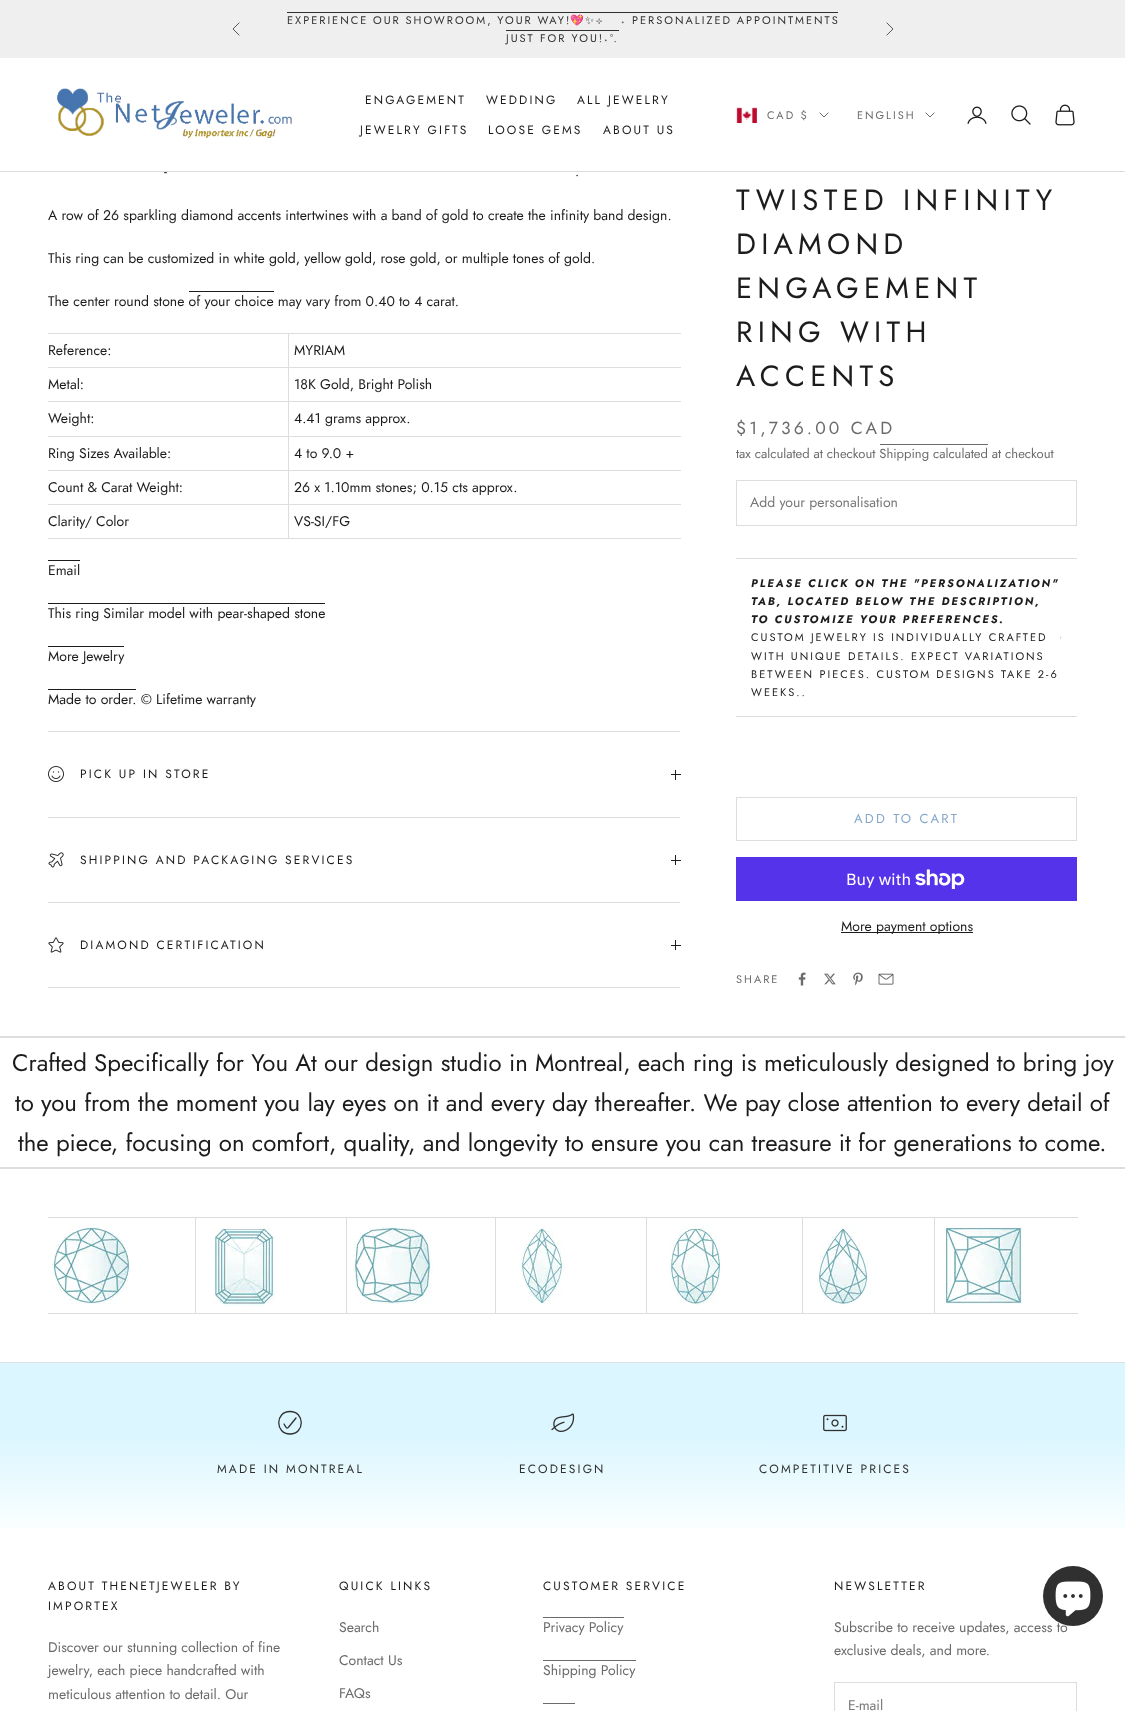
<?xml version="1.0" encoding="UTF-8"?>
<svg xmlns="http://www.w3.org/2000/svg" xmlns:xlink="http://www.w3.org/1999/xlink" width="1125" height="1711">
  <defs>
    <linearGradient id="g1" gradientUnits="userSpaceOnUse" x1="563" y1="1363" x2="563" y2="1528"><stop offset="0.45" stop-color="#dcf6ff" /><stop offset="1" stop-color="#f9ffff" /></linearGradient>
  </defs>
  <rect width="100%" height="100%" fill="#ffffff" />
  <rect width="1125" height="58" fill="#efefef" />
  <path d="M 239 23 l -6 6 l 6 6" fill="none" stroke="#303030" stroke-width="0.8" stroke-linecap="square" />
  <rect x="287" y="12" width="551" height="1" fill="#303030" />
  <rect x="506" y="30" width="113" height="1" fill="#303030" />
  <path d="M 887 35 l 6 -6 l -6 -6" fill="none" stroke="#303030" stroke-width="0.8" stroke-linecap="square" />
  <rect y="171" width="1125" height="1" fill="#dddddd" />
  <image x="57" y="88" width="235" height="50" xlink:href="image1.png" />
  <image x="736" y="107" width="21" height="16" xlink:href="image2.png" />
  <path d="M 820 113 l 4 4 l 4 -4" fill="none" stroke="#6b6b6b" stroke-linecap="square" />
  <path d="M 926 113 l 4 4 l 4 -4" fill="none" stroke="#6b6b6b" stroke-linecap="square" />
  <image x="967" y="106" width="20" height="18" xlink:href="image3.png" />
  <image x="1011" y="105" width="20" height="20" xlink:href="image4.png" />
  <image x="1055" y="104" width="20" height="22" xlink:href="image5.png" />
  <rect x="189" y="291" width="85" height="1" fill="#1c1c1c" />
  <rect x="288" y="333" width="393" height="1" fill="#dddddd" />
  <rect x="288" y="367" width="393" height="1" fill="#dddddd" />
  <rect x="288" y="401" width="393" height="1" fill="#dddddd" />
  <rect x="288" y="436" width="393" height="1" fill="#dddddd" />
  <rect x="288" y="470" width="393" height="1" fill="#dddddd" />
  <rect x="288" y="504" width="393" height="1" fill="#dddddd" />
  <rect x="288" y="538" width="393" height="1" fill="#dddddd" />
  <rect x="288" y="504" width="1" height="35" fill="#dddddd" />
  <rect x="48" y="504" width="241" height="1" fill="#dddddd" />
  <rect x="288" y="470" width="1" height="35" fill="#dddddd" />
  <rect x="48" y="470" width="241" height="1" fill="#dddddd" />
  <rect x="288" y="436" width="1" height="35" fill="#dddddd" />
  <rect x="48" y="436" width="241" height="1" fill="#dddddd" />
  <rect x="288" y="401" width="1" height="36" fill="#dddddd" />
  <rect x="48" y="401" width="241" height="1" fill="#dddddd" />
  <rect x="288" y="367" width="1" height="35" fill="#dddddd" />
  <rect x="48" y="367" width="241" height="1" fill="#dddddd" />
  <rect x="288" y="333" width="1" height="35" fill="#dddddd" />
  <rect x="48" y="333" width="241" height="1" fill="#dddddd" />
  <rect x="48" y="538" width="241" height="1" fill="#dddddd" />
  <rect x="48" y="560" width="32" height="1" fill="#1c1c1c" />
  <rect x="48" y="603" width="277" height="1" fill="#1c1c1c" />
  <rect x="48" y="646" width="76" height="1" fill="#1c1c1c" />
  <rect x="48" y="689" width="88" height="1" fill="#1c1c1c" />
  <rect x="48" y="731" width="632" height="1" fill="#dddddd" />
  <rect x="48" y="817" width="632" height="1" fill="#dddddd" />
  <image x="48" y="766" width="16" height="16" xlink:href="image6.png" />
  <rect x="675" y="770" width="1" height="10" fill="#1c1c1c" />
  <rect x="671" y="774" width="10" height="1" fill="#1c1c1c" />
  <rect x="48" y="902" width="632" height="1" fill="#dddddd" />
  <image x="48" y="852" width="16" height="16" xlink:href="image7.png" />
  <rect x="675" y="855" width="1" height="10" fill="#1c1c1c" />
  <rect x="671" y="860" width="10" height="1" fill="#1c1c1c" />
  <rect x="48" y="987" width="632" height="1" fill="#dddddd" />
  <image x="48" y="937" width="16" height="16" xlink:href="image8.png" />
  <rect x="675" y="940" width="1" height="10" fill="#1c1c1c" />
  <rect x="671" y="945" width="10" height="1" fill="#1c1c1c" />
  <rect x="880" y="444" width="108" height="1" fill="#6b6b6b" />
  <rect x="736.5" y="480.5" width="340" height="45" fill="none" stroke="#dddddd" />
  <rect x="736" y="558" width="341" height="1" fill="#dddddd" />
  <rect x="736" y="716" width="341" height="1" fill="#dddddd" />
  <path d="M 1060.5 638.5 l 0.5 -0.5 l -0.5 -1" fill="none" stroke="#1c1c1c" stroke-width="0.2" stroke-linecap="square" />
  <rect x="736.5" y="797.5" width="340" height="43" fill="none" stroke="#dddddd" />
  <rect x="736" y="857" width="341" height="44" fill="#5433eb" />
  <image x="915" y="869" width="50" height="20" xlink:href="image9.png" />
  <rect x="841" y="932" width="132" height="1" fill="#1c1c1c" />
  <image x="798" y="972" width="8" height="14" xlink:href="image10.png" />
  <image x="824" y="973" width="12" height="12" xlink:href="image11.png" />
  <image x="853" y="972" width="10" height="14" xlink:href="image12.png" />
  <image x="878" y="973" width="16" height="12" xlink:href="image13.png" />
  <rect y="1036" width="1125" height="2" fill="#dddddd" />
  <rect y="1167" width="1125" height="2" fill="#dddddd" />
  <rect x="934" y="1217" width="144" height="1" fill="#dddddd" />
  <rect x="934" y="1313" width="144" height="1" fill="#dddddd" />
  <rect x="934" y="1217" width="1" height="97" fill="#dddddd" />
  <rect x="802" y="1217" width="133" height="1" fill="#dddddd" />
  <rect x="802" y="1313" width="133" height="1" fill="#dddddd" />
  <rect x="802" y="1217" width="1" height="97" fill="#dddddd" />
  <rect x="646" y="1217" width="157" height="1" fill="#dddddd" />
  <rect x="646" y="1313" width="157" height="1" fill="#dddddd" />
  <rect x="646" y="1217" width="1" height="97" fill="#dddddd" />
  <rect x="495" y="1217" width="152" height="1" fill="#dddddd" />
  <rect x="495" y="1313" width="152" height="1" fill="#dddddd" />
  <rect x="495" y="1217" width="1" height="97" fill="#dddddd" />
  <rect x="346" y="1217" width="150" height="1" fill="#dddddd" />
  <rect x="346" y="1313" width="150" height="1" fill="#dddddd" />
  <rect x="346" y="1217" width="1" height="97" fill="#dddddd" />
  <rect x="195" y="1217" width="152" height="1" fill="#dddddd" />
  <rect x="195" y="1313" width="152" height="1" fill="#dddddd" />
  <rect x="195" y="1217" width="1" height="97" fill="#dddddd" />
  <rect x="48" y="1217" width="148" height="1" fill="#dddddd" />
  <rect x="48" y="1313" width="148" height="1" fill="#dddddd" />
  <image x="48" y="1224" width="84" height="81" xlink:href="image14.png" />
  <image x="214" y="1226" width="63" height="81" xlink:href="image15.png" />
  <image x="352" y="1224" width="81" height="81" xlink:href="image16.png" />
  <image x="520" y="1227" width="45" height="77" xlink:href="image17.png" />
  <image x="668" y="1225" width="53" height="80" xlink:href="image18.png" />
  <image x="816" y="1223" width="56" height="84" xlink:href="image19.png" />
  <image x="944" y="1226" width="79" height="79" xlink:href="image20.png" />
  <rect y="1363" width="1125" height="165" fill="url(#g1)" />
  <rect y="1362" width="1125" height="1" fill="#dbe0e0" />
  <path d="M 284 1424 c 2.5 4 2.5 6 5.5 2 l 6.5 -8 m -6 16 c 15 0 15 -22.5 0 -22.5 c -15 0 -15 22.5 0 22.5 z" fill="none" stroke="#303030" stroke-width="1.3" stroke-linecap="round" stroke-linejoin="round" />
  <image x="551" y="1413" width="24" height="19" xlink:href="image21.png" />
  <image x="823" y="1414" width="24" height="18" xlink:href="image22.png" />
  <rect x="543" y="1617" width="81" height="1" fill="#6b6b6b" />
  <rect x="543" y="1660" width="93" height="1" fill="#6b6b6b" />
  <rect x="543" y="1703" width="32" height="1" fill="#6b6b6b" />
  <rect x="834.5" y="1682.5" width="242" height="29" fill="none" stroke="#dddddd" />
  <text x="287" y="24" word-spacing="-0.5" style="font-family: Jost; font-size: 11px; letter-spacing: 2px; fill: #303030">EXPERIENCE OUR SHOWROOM, YOUR WAY!</text>
  <text x="570" y="24" style="font-family: Noto Color Emoji; font-size: 11px; letter-spacing: 2px; fill: #303030">💖</text>
  <text x="585" y="24" style="font-family: FreeSerif; font-size: 11px; letter-spacing: 2px; fill: #303030">✨⊹</text>
  <text x="621" y="24" style="font-family: Liberation Sans; font-size: 11px; letter-spacing: 2px; fill: #303030">˖</text>
  <text x="632" y="24" word-spacing="-0.5" style="font-family: Jost; font-size: 11px; letter-spacing: 2px; fill: #303030">PERSONALIZED APPOINTMENTS</text>
  <text x="506" y="42" style="font-family: Jost; font-size: 11px; letter-spacing: 2px; fill: #303030">JUST FOR YOU!</text>
  <text x="604" y="42" style="font-family: Liberation Sans; font-size: 11px; letter-spacing: 2px; fill: #303030">˖</text>
  <text x="610" y="42" style="font-family: Jost; font-size: 11px; letter-spacing: 2px; fill: #303030">°.</text>
  <text x="365" y="104" style="font-family: Jost; font-size: 12px; letter-spacing: 2.15px; fill: #1c1c1c">ENGAGEMENT</text>
  <text x="486" y="104" style="font-family: Jost; font-size: 12px; letter-spacing: 2.15px; fill: #1c1c1c">WEDDING</text>
  <text x="577" y="104" style="font-family: Jost; font-size: 12px; letter-spacing: 2.15px; fill: #1c1c1c">ALL JEWELRY</text>
  <text x="360" y="134" style="font-family: Jost; font-size: 12px; letter-spacing: 2.15px; fill: #1c1c1c">JEWELRY GIFTS</text>
  <text x="488" y="134" style="font-family: Jost; font-size: 12px; letter-spacing: 2.15px; fill: #1c1c1c">LOOSE GEMS</text>
  <text x="603" y="134" style="font-family: Jost; font-size: 12px; letter-spacing: 2.15px; fill: #1c1c1c">ABOUT US</text>
  <text x="767" y="119" style="font-family: Jost; font-size: 11px; letter-spacing: 2px; fill: #6b6b6b">CAD $</text>
  <text x="857" y="119" style="font-family: Jost; font-size: 11px; letter-spacing: 2px; fill: #6b6b6b">ENGLISH</text>
  <text x="164" y="176" style="font-family: Jost; font-size: 14px; letter-spacing: 3px; fill: #1c1c1c">-</text>
  <text x="575" y="176" style="font-family: Jost; font-size: 14px; letter-spacing: 3px; fill: #1c1c1c">.</text>
  <text x="48" y="220" style="font-family: Jost; font-size: 14px; fill: #1c1c1c">A row of 26 sparkling diamond accents intertwines with a band of gold to create the infinity band design.</text>
  <text x="48" y="263" style="font-family: Jost; font-size: 14px; fill: #1c1c1c">This ring can be customized in white gold, yellow gold, rose gold, or multiple tones of gold.</text>
  <text x="48" y="306" style="font-family: Jost; font-size: 14px; fill: #1c1c1c">The center round stone of your choice may vary from 0.40 to 4 carat.</text>
  <text x="48" y="355" style="font-family: Jost; font-size: 14px; fill: #1c1c1c">Reference:</text>
  <text x="294" y="355" style="font-family: Jost; font-size: 14px; fill: #1c1c1c">MYRIAM</text>
  <text x="48" y="389" style="font-family: Jost; font-size: 14px; fill: #1c1c1c">Metal:</text>
  <text x="294" y="389" style="font-family: Jost; font-size: 14px; fill: #1c1c1c">18K Gold, Bright Polish</text>
  <text x="48" y="423" style="font-family: Jost; font-size: 14px; fill: #1c1c1c">Weight:</text>
  <text x="294" y="423" style="font-family: Jost; font-size: 14px; fill: #1c1c1c">4.41 grams approx.</text>
  <text x="48" y="458" style="font-family: Jost; font-size: 14px; fill: #1c1c1c">Ring Sizes Available:</text>
  <text x="294" y="458" style="font-family: Jost; font-size: 14px; fill: #1c1c1c">4 to 9.0 +</text>
  <text x="48" y="492" style="font-family: Jost; font-size: 14px; fill: #1c1c1c">Count &amp; Carat Weight:</text>
  <text x="294" y="492" style="font-family: Jost; font-size: 14px; fill: #1c1c1c">26 x 1.10mm stones; 0.15 cts approx.</text>
  <text x="48" y="526" style="font-family: Jost; font-size: 14px; fill: #1c1c1c">Clarity/ Color</text>
  <text x="294" y="526" style="font-family: Jost; font-size: 14px; fill: #1c1c1c">VS-SI/FG</text>
  <text x="48" y="575" style="font-family: Jost; font-size: 14px; fill: #1c1c1c">Email</text>
  <text x="48" y="618" style="font-family: Jost; font-size: 14px; fill: #1c1c1c">This ring Similar model with pear-shaped stone</text>
  <text x="48" y="661" style="font-family: Jost; font-size: 14px; fill: #1c1c1c">More Jewelry</text>
  <text x="48" y="704" style="font-family: Jost; font-size: 14px; fill: #1c1c1c">Made to order. © Lifetime warranty</text>
  <text x="80" y="778" style="font-family: Jost; font-size: 12px; letter-spacing: 2.15px; fill: #1c1c1c">PICK UP IN STORE</text>
  <text x="80" y="864" style="font-family: Jost; font-size: 12px; letter-spacing: 2.15px; fill: #1c1c1c">SHIPPING AND PACKAGING SERVICES</text>
  <text x="80" y="949" style="font-family: Jost; font-size: 12px; letter-spacing: 2.15px; fill: #1c1c1c">DIAMOND CERTIFICATION</text>
  <text x="736" y="210" style="font-family: Jost; font-size: 29.25px; letter-spacing: 5.25px; fill: #1c1c1c">TWISTED INFINITY</text>
  <text x="736" y="254" style="font-family: Jost; font-size: 29.25px; letter-spacing: 5.25px; fill: #1c1c1c">DIAMOND</text>
  <text x="736" y="298" style="font-family: Jost; font-size: 29.25px; letter-spacing: 5.25px; fill: #1c1c1c">ENGAGEMENT</text>
  <text x="736" y="342" style="font-family: Jost; font-size: 29.25px; letter-spacing: 5.25px; fill: #1c1c1c">RING WITH</text>
  <text x="736" y="386" style="font-family: Jost; font-size: 29.25px; letter-spacing: 5.25px; fill: #1c1c1c">ACCENTS</text>
  <text x="736" y="434" style="font-family: Jost; font-size: 17.5px; letter-spacing: 3.1px; fill: #6b6b6b">$1,736.00 CAD</text>
  <text x="736" y="458" style="font-family: Jost; font-size: 13px; fill: #6b6b6b">tax calculated at checkout Shipping calculated at checkout</text>
  <text x="750" y="507" style="font-family: Jost; font-size: 14px; fill: #777777">Add your personalisation</text>
  <text x="751" y="587" style="font-family: Jost; font-size: 11px; font-weight: bold; font-style: italic; letter-spacing: 2px; fill: #1c1c1c">PLEASE CLICK ON THE "PERSONALIZATION"</text>
  <text x="751" y="605" style="font-family: Jost; font-size: 11px; font-weight: bold; font-style: italic; letter-spacing: 2px; fill: #1c1c1c">TAB, LOCATED BELOW THE DESCRIPTION,</text>
  <text x="751" y="623" style="font-family: Jost; font-size: 11px; font-weight: bold; font-style: italic; letter-spacing: 2px; fill: #1c1c1c">TO CUSTOMIZE YOUR PREFERENCES.</text>
  <text x="751" y="641" style="font-family: Jost; font-size: 11px; letter-spacing: 2px; fill: #1c1c1c">CUSTOM JEWELRY IS INDIVIDUALLY CRAFTED</text>
  <text x="751" y="660" style="font-family: Jost; font-size: 11px; letter-spacing: 2px; fill: #1c1c1c">WITH UNIQUE DETAILS. EXPECT VARIATIONS</text>
  <text x="751" y="678" style="font-family: Jost; font-size: 11px; letter-spacing: 2px; fill: #1c1c1c">BETWEEN PIECES. CUSTOM DESIGNS TAKE 2-6</text>
  <text x="751" y="696" style="font-family: Jost; font-size: 11px; letter-spacing: 2px; fill: #1c1c1c">WEEKS..</text>
  <text x="854" y="823" style="font-family: Jost; font-size: 13px; letter-spacing: 2.25px; fill: #84a7c9">ADD TO CART</text>
  <text x="846" y="885" style="font-family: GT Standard; font-size: 16px; fill: #ffffff">Buy with</text>
  <text x="841" y="931" style="font-family: Jost; font-size: 14px; fill: #1c1c1c">More payment options</text>
  <text x="736" y="983" style="font-family: Jost; font-size: 11px; letter-spacing: 2px; fill: #6b6b6b">SHARE</text>
  <text x="12" y="1071" style="font-family: Jost; font-size: 24px; fill: #1c1c1c">Crafted Specifically for You At our design studio in Montreal, each ring is meticulously designed to bring joy</text>
  <text x="15" y="1111" style="font-family: Jost; font-size: 24px; fill: #1c1c1c">to you from the moment you lay eyes on it and every day thereafter. We pay close attention to every detail of</text>
  <text x="18" y="1151" style="font-family: Jost; font-size: 24px; fill: #1c1c1c">the piece, focusing on comfort, quality, and longevity to ensure you can treasure it for generations to come.</text>
  <text x="217" y="1473" style="font-family: Jost; font-size: 12px; letter-spacing: 2.15px; fill: #303030">MADE IN MONTREAL</text>
  <text x="519" y="1473" style="font-family: Jost; font-size: 12px; letter-spacing: 2.15px; fill: #303030">ECODESIGN</text>
  <text x="759" y="1473" style="font-family: Jost; font-size: 12px; letter-spacing: 2.15px; fill: #303030">COMPETITIVE PRICES</text>
  <text x="48" y="1590" style="font-family: Jost; font-size: 12px; letter-spacing: 2.15px; fill: #1c1c1c">ABOUT THENETJEWELER BY</text>
  <text x="48" y="1610" style="font-family: Jost; font-size: 12px; letter-spacing: 2.15px; fill: #1c1c1c">IMPORTEX</text>
  <text x="48" y="1652" style="font-family: Jost; font-size: 14px; fill: #6b6b6b">Discover our stunning collection of fine</text>
  <text x="48" y="1675" style="font-family: Jost; font-size: 14px; fill: #6b6b6b">jewelry, each piece handcrafted with</text>
  <text x="48" y="1699" style="font-family: Jost; font-size: 14px; fill: #6b6b6b">meticulous attention to detail. Our</text>
  <text x="339" y="1590" style="font-family: Jost; font-size: 12px; letter-spacing: 2.15px; fill: #1c1c1c">QUICK LINKS</text>
  <text x="339" y="1632" style="font-family: Jost; font-size: 14px; fill: #6b6b6b">Search</text>
  <text x="339" y="1665" style="font-family: Jost; font-size: 14px; fill: #6b6b6b">Contact Us</text>
  <text x="339" y="1698" style="font-family: Jost; font-size: 14px; fill: #6b6b6b">FAQs</text>
  <text x="543" y="1590" style="font-family: Jost; font-size: 12px; letter-spacing: 2.15px; fill: #1c1c1c">CUSTOMER SERVICE</text>
  <text x="543" y="1632" style="font-family: Jost; font-size: 14px; fill: #6b6b6b">Privacy Policy</text>
  <text x="543" y="1675" style="font-family: Jost; font-size: 14px; fill: #6b6b6b">Shipping Policy</text>
  <text x="834" y="1590" style="font-family: Jost; font-size: 12px; letter-spacing: 2.15px; fill: #1c1c1c">NEWSLETTER</text>
  <text x="834" y="1632" style="font-family: Jost; font-size: 14px; fill: #6b6b6b">Subscribe to receive updates, access to</text>
  <text x="834" y="1655" style="font-family: Jost; font-size: 14px; fill: #6b6b6b">exclusive deals, and more.</text>
  <text x="848" y="1710" style="font-family: Jost; font-size: 14px; fill: #777777">E-mail</text>
  <circle cx="1073" cy="1596" r="30" fill="#303030" />
  <image x="1055" y="1581" width="36" height="36" xlink:href="image23.png" />
</svg>
